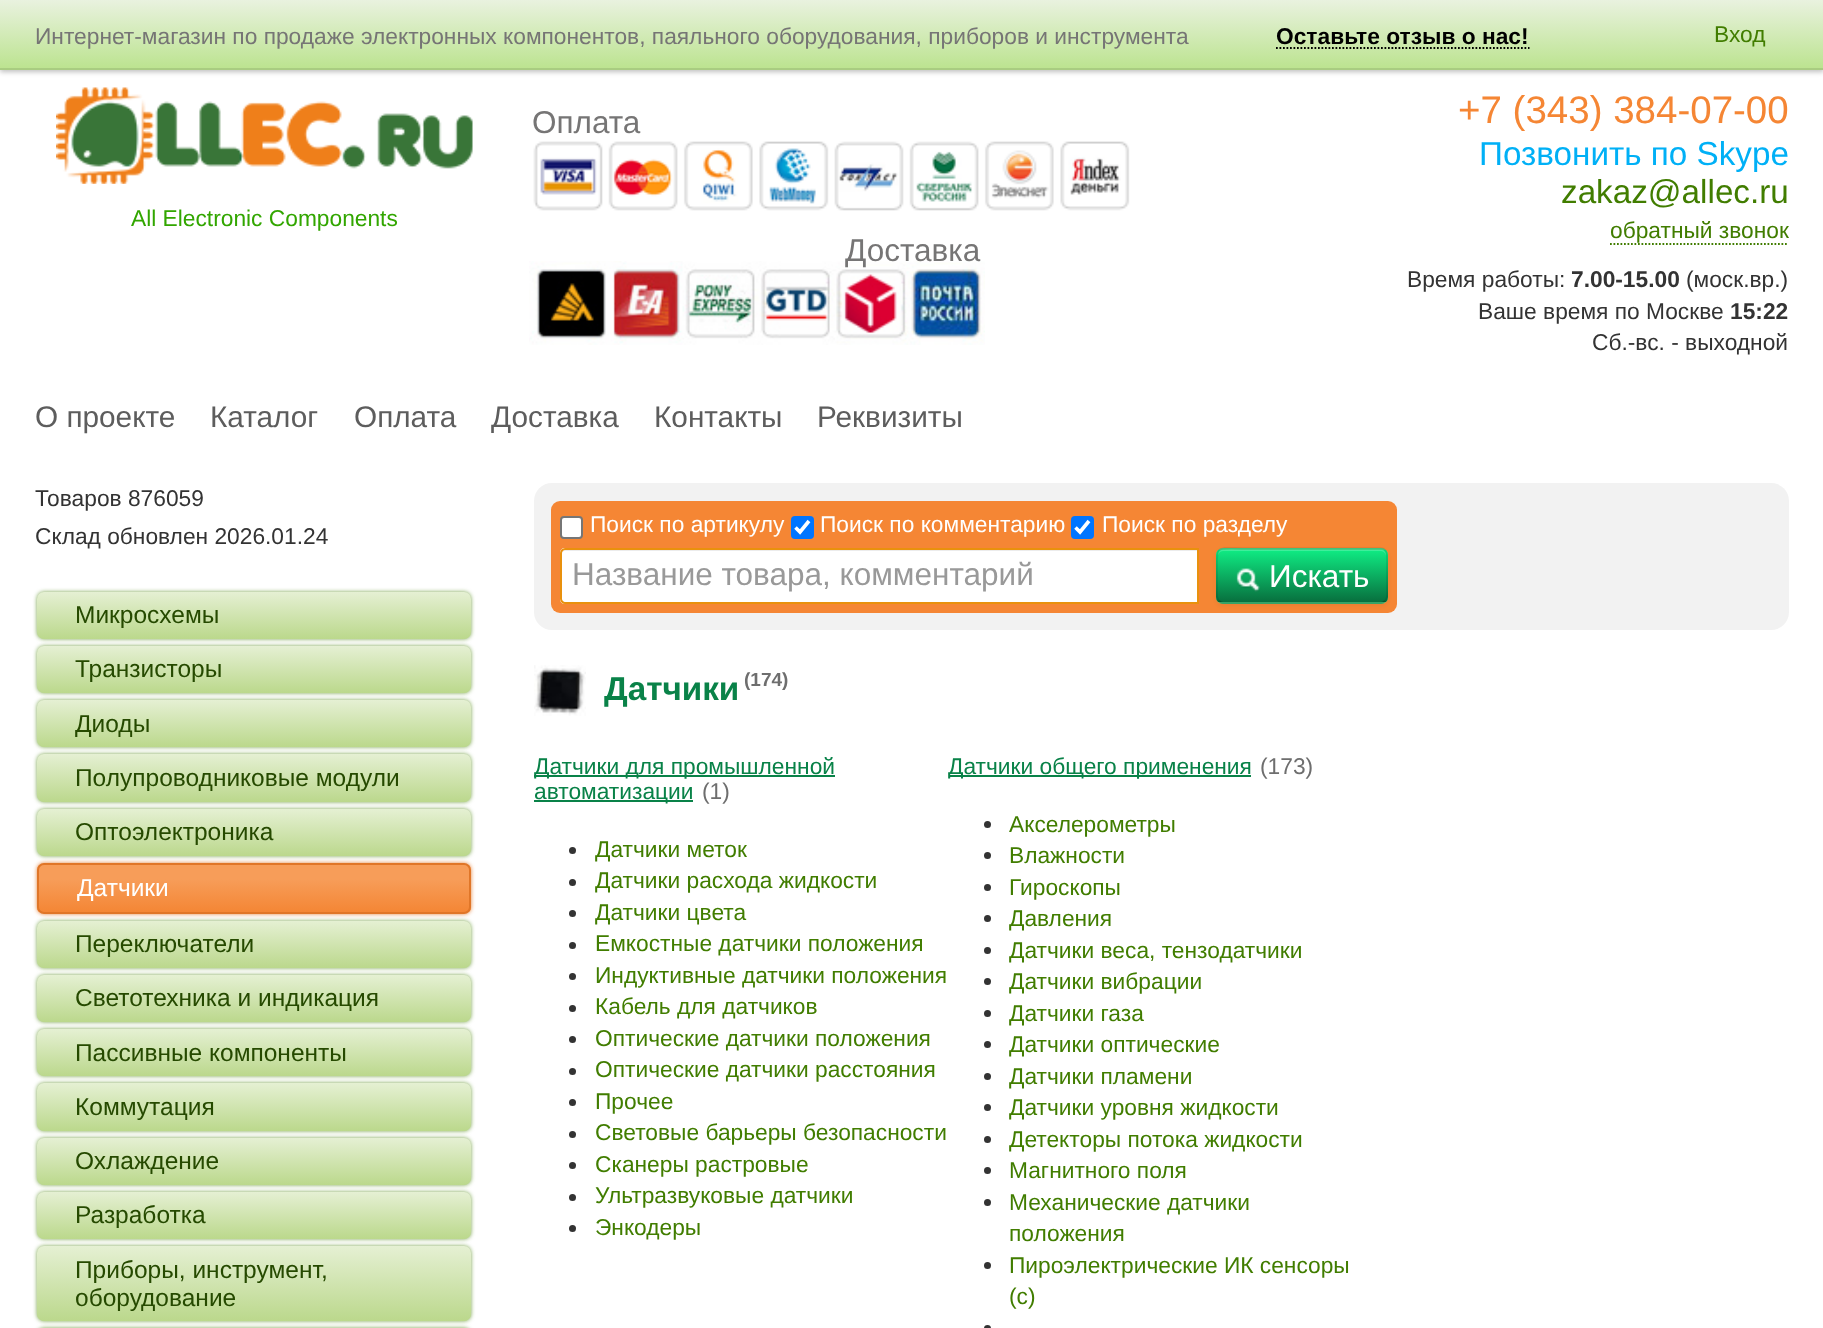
<?xml version="1.0" encoding="UTF-8"?>
<svg xmlns="http://www.w3.org/2000/svg" xmlns:xlink="http://www.w3.org/1999/xlink" width="1823" height="1328">
  <defs>
    <linearGradient id="g1" gradientUnits="userSpaceOnUse" x1="912" y1="0" x2="912" y2="70"><stop offset="0" stop-color="#e9f2df" /><stop offset="1" stop-color="#bbe38e" /></linearGradient>
    <linearGradient id="g2" gradientUnits="userSpaceOnUse" x1="254" y1="592" x2="254" y2="639"><stop offset="0" stop-color="#e5f0d3" /><stop offset="1" stop-color="#bbd88c" /></linearGradient>
    <linearGradient id="g3" gradientUnits="userSpaceOnUse" x1="254" y1="646" x2="254" y2="693"><stop offset="0" stop-color="#e5f0d3" /><stop offset="1" stop-color="#bbd88c" /></linearGradient>
    <linearGradient id="g4" gradientUnits="userSpaceOnUse" x1="254" y1="700" x2="254" y2="747"><stop offset="0" stop-color="#e5f0d3" /><stop offset="1" stop-color="#bbd88c" /></linearGradient>
    <linearGradient id="g5" gradientUnits="userSpaceOnUse" x1="254" y1="754" x2="254" y2="802"><stop offset="0" stop-color="#e5f0d3" /><stop offset="1" stop-color="#bbd88c" /></linearGradient>
    <linearGradient id="g6" gradientUnits="userSpaceOnUse" x1="254" y1="809" x2="254" y2="856"><stop offset="0" stop-color="#e5f0d3" /><stop offset="1" stop-color="#bbd88c" /></linearGradient>
    <clipPath id="clip1"><rect x="37" y="863" width="434" height="51" rx="7" /></clipPath>
    <linearGradient id="g7" gradientUnits="userSpaceOnUse" x1="254" y1="865" x2="254" y2="912"><stop offset="0.3" stop-color="#f79d59" /><stop offset="1" stop-color="#f48635" /></linearGradient>
    <linearGradient id="g8" gradientUnits="userSpaceOnUse" x1="254" y1="921" x2="254" y2="968"><stop offset="0" stop-color="#e5f0d3" /><stop offset="1" stop-color="#bbd88c" /></linearGradient>
    <linearGradient id="g9" gradientUnits="userSpaceOnUse" x1="254" y1="975" x2="254" y2="1022"><stop offset="0" stop-color="#e5f0d3" /><stop offset="1" stop-color="#bbd88c" /></linearGradient>
    <linearGradient id="g10" gradientUnits="userSpaceOnUse" x1="254" y1="1029" x2="254" y2="1076"><stop offset="0" stop-color="#e5f0d3" /><stop offset="1" stop-color="#bbd88c" /></linearGradient>
    <linearGradient id="g11" gradientUnits="userSpaceOnUse" x1="254" y1="1083" x2="254" y2="1131"><stop offset="0" stop-color="#e5f0d3" /><stop offset="1" stop-color="#bbd88c" /></linearGradient>
    <linearGradient id="g12" gradientUnits="userSpaceOnUse" x1="254" y1="1138" x2="254" y2="1185"><stop offset="0" stop-color="#e5f0d3" /><stop offset="1" stop-color="#bbd88c" /></linearGradient>
    <linearGradient id="g13" gradientUnits="userSpaceOnUse" x1="254" y1="1192" x2="254" y2="1239"><stop offset="0" stop-color="#e5f0d3" /><stop offset="1" stop-color="#bbd88c" /></linearGradient>
    <linearGradient id="g14" gradientUnits="userSpaceOnUse" x1="254" y1="1246" x2="254" y2="1321"><stop offset="0" stop-color="#e5f0d3" /><stop offset="1" stop-color="#bbd88c" /></linearGradient>
    <clipPath id="clip2"><rect x="1216" y="548" width="172" height="56" rx="7" /></clipPath>
    <linearGradient id="g15" gradientUnits="userSpaceOnUse" x1="1302" y1="550" x2="1302" y2="602"><stop offset="0" stop-color="#0feb83" /><stop offset="1" stop-color="#086f3e" /></linearGradient>
    <clipPath id="clip3"><rect x="534" y="754" width="1255" height="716" /></clipPath>
  </defs>
  <rect width="100%" height="100%" fill="#ffffff" />
  <rect y="2" width="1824" height="70" fill="#000000" fill-opacity="0.25" filter="blur(2.5px)" />
  <rect width="1823" height="68" fill="url(#g1)" />
  <rect y="68" width="1823" height="2" fill="#a9cc81" />
  <path d="M 1276 48 h 253.5" fill="none" stroke="#000000" stroke-width="1.8" stroke-dasharray="1.75 1.75" />
  <image x="533" y="141" width="597" height="70" xlink:href="image1.png" />
  <path d="M 1610 244 h 178.5" fill="none" stroke="#417d00" stroke-width="1.8" stroke-dasharray="1.75 1.75" />
  <image x="56" y="87" width="417" height="97" xlink:href="image2.png" />
  <image x="529" y="261" width="456" height="84" xlink:href="image3.png" />
  <rect x="37" y="592" width="434" height="47" rx="7" fill="#417d00" fill-opacity="0.7" filter="blur(2px)" />
  <rect x="37" y="592" width="434" height="47" rx="7" fill="url(#g2)" />
  <rect x="37" y="646" width="434" height="47" rx="7" fill="#417d00" fill-opacity="0.7" filter="blur(2px)" />
  <rect x="37" y="646" width="434" height="47" rx="7" fill="url(#g3)" />
  <rect x="37" y="700" width="434" height="47" rx="7" fill="#417d00" fill-opacity="0.7" filter="blur(2px)" />
  <rect x="37" y="700" width="434" height="47" rx="7" fill="url(#g4)" />
  <rect x="37" y="754" width="434" height="48" rx="7" fill="#417d00" fill-opacity="0.7" filter="blur(2px)" />
  <rect x="37" y="754" width="434" height="48" rx="7" fill="url(#g5)" />
  <rect x="37" y="809" width="434" height="47" rx="7" fill="#417d00" fill-opacity="0.7" filter="blur(2px)" />
  <rect x="37" y="809" width="434" height="47" rx="7" fill="url(#g6)" />
  <rect x="37" y="863" width="434" height="51" rx="7" fill="#e07628" fill-opacity="0.9" filter="blur(2px)" />
  <g clip-path="url(#clip1)">
    <rect x="37" y="865" width="434" height="47" fill="url(#g7)" />
  </g>
  <rect x="38" y="864" width="432" height="49" rx="6" fill="none" stroke="#e07628" stroke-width="2" />
  <rect x="37" y="921" width="434" height="47" rx="7" fill="#417d00" fill-opacity="0.7" filter="blur(2px)" />
  <rect x="37" y="921" width="434" height="47" rx="7" fill="url(#g8)" />
  <rect x="37" y="975" width="434" height="47" rx="7" fill="#417d00" fill-opacity="0.7" filter="blur(2px)" />
  <rect x="37" y="975" width="434" height="47" rx="7" fill="url(#g9)" />
  <rect x="37" y="1029" width="434" height="47" rx="7" fill="#417d00" fill-opacity="0.7" filter="blur(2px)" />
  <rect x="37" y="1029" width="434" height="47" rx="7" fill="url(#g10)" />
  <rect x="37" y="1083" width="434" height="48" rx="7" fill="#417d00" fill-opacity="0.7" filter="blur(2px)" />
  <rect x="37" y="1083" width="434" height="48" rx="7" fill="url(#g11)" />
  <rect x="37" y="1138" width="434" height="47" rx="7" fill="#417d00" fill-opacity="0.7" filter="blur(2px)" />
  <rect x="37" y="1138" width="434" height="47" rx="7" fill="url(#g12)" />
  <rect x="37" y="1192" width="434" height="47" rx="7" fill="#417d00" fill-opacity="0.7" filter="blur(2px)" />
  <rect x="37" y="1192" width="434" height="47" rx="7" fill="url(#g13)" />
  <rect x="37" y="1246" width="434" height="75" rx="7" fill="#417d00" fill-opacity="0.7" filter="blur(2px)" />
  <rect x="37" y="1246" width="434" height="75" rx="7" fill="url(#g14)" />
  <rect x="37" y="1328" width="434" height="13" rx="7" fill="#417d00" fill-opacity="0.7" filter="blur(2px)" />
  <rect x="534" y="483" width="1255" height="147" rx="18" fill="#f2f2f2" />
  <rect x="551" y="501" width="846" height="112" rx="9" fill="#f58634" />
  <rect x="561" y="517" width="21" height="21" rx="3" fill="#ffffff" stroke="#767676" stroke-width="2" />
  <rect x="791" y="516" width="23" height="23" rx="4" fill="#0075ff" />
  <path d="M 795.5 527.5 l 4.5 4.5 l 9 -11" fill="none" stroke="#ffffff" stroke-width="3.6" />
  <rect x="1071" y="516" width="23" height="23" rx="4" fill="#0075ff" />
  <path d="M 1075.5 527.5 l 4.5 4.5 l 9 -11" fill="none" stroke="#ffffff" stroke-width="3.6" />
  <path d="M 565 548 h 634 v 56 h -634 c -3 0 -5 -2 -5 -5 v -46 c 0 -3 2 -5 5 -5 z" fill="#ffffff" />
  <path d="M 565 551 h 632 v -1 h -631 c -3 0 -4 2 -4 5 c 0 -2 1 -4 3 -4 z" fill="#ececec" />
  <path d="M 565 549 h 633 v 54 h -633 c -2 0 -4 -2 -4 -4 v -46 c 0 -2 2 -4 4 -4 z" fill="none" stroke="#e9910d" stroke-width="2" />
  <rect x="1216" y="550" width="172" height="56" rx="7" fill="#000000" fill-opacity="0.05" filter="blur(2px)" />
  <rect x="1216" y="548" width="172" height="56" rx="7" fill="#48d888" />
  <g clip-path="url(#clip2)">
    <rect x="1216" y="550" width="172" height="52" fill="url(#g15)" />
  </g>
  <path d="M 1223 551 h 158 c 3 0 5 3 5 5 v -1 c 0 -3 -2 -5 -5 -5 h -158 c -3 0 -5 2 -5 5 v 1 c 0 -2 2 -5 5 -5 z" fill="#ffffff" fill-opacity="0.2" />
  <path d="M 1385 601 c -1 1 -2.5 2 -4 2 h -158 c -1.5 0 -3 -1 -4 -2" fill="none" stroke="#000000" stroke-opacity="0.25" stroke-width="1.8" />
  <path d="M 1219 601 c -3 -3 -2 -8 -2 -11 v -14 c 0 -33.5 -4 -27.5 32.5 -27.5 h 131.5 c 7 0 6 8.5 6 13.5 v 28 c 0 3 1 8 -2 11" fill="none" stroke="#000000" stroke-opacity="0.1" stroke-width="1.8" />
  <image x="1236" y="568" width="24" height="24" xlink:href="image4.png" />
  <image x="534" y="665" width="52" height="51" xlink:href="image5.png" />
  <rect x="534" y="775" width="301" height="2" fill="#098248" />
  <rect x="534" y="800" width="159" height="2" fill="#098248" />
  <circle cx="572.5" cy="850.5" r="3.5" fill="#333333" />
  <circle cx="572.5" cy="882.5" r="3.5" fill="#333333" />
  <circle cx="572.5" cy="913.5" r="3.5" fill="#333333" />
  <circle cx="572.5" cy="945.5" r="3.5" fill="#333333" />
  <circle cx="572.5" cy="976.5" r="3.5" fill="#333333" />
  <circle cx="572.5" cy="1008.5" r="3.5" fill="#333333" />
  <circle cx="572.5" cy="1039.5" r="3.5" fill="#333333" />
  <circle cx="572.5" cy="1071.5" r="3.5" fill="#333333" />
  <circle cx="572.5" cy="1102.5" r="3.5" fill="#333333" />
  <circle cx="572.5" cy="1134.5" r="3.5" fill="#333333" />
  <circle cx="572.5" cy="1165.5" r="3.5" fill="#333333" />
  <circle cx="572.5" cy="1197.5" r="3.5" fill="#333333" />
  <circle cx="572.5" cy="1228.5" r="3.5" fill="#333333" />
  <rect x="949" y="775" width="302" height="2" fill="#098248" />
  <circle cx="987.5" cy="824.5" r="3.5" fill="#333333" />
  <circle cx="987.5" cy="855.5" r="3.5" fill="#333333" />
  <circle cx="987.5" cy="887.5" r="3.5" fill="#333333" />
  <circle cx="987.5" cy="918.5" r="3.5" fill="#333333" />
  <circle cx="987.5" cy="950.5" r="3.5" fill="#333333" />
  <circle cx="987.5" cy="981.5" r="3.5" fill="#333333" />
  <circle cx="987.5" cy="1013.5" r="3.5" fill="#333333" />
  <circle cx="987.5" cy="1044.5" r="3.5" fill="#333333" />
  <circle cx="987.5" cy="1076.5" r="3.5" fill="#333333" />
  <circle cx="987.5" cy="1107.5" r="3.5" fill="#333333" />
  <circle cx="987.5" cy="1139.5" r="3.5" fill="#333333" />
  <circle cx="987.5" cy="1170.5" r="3.5" fill="#333333" />
  <circle cx="987.5" cy="1202.5" r="3.5" fill="#333333" />
  <circle cx="987.5" cy="1265.5" r="3.5" fill="#333333" />
  <circle cx="987.5" cy="1328.5" r="3.5" fill="#333333" />
  <text x="35" y="44" style="font-family: Liberation Sans; font-size: 22.75px; fill: #767575">Интернет-магазин по продаже электронных компонентов, паяльного оборудования, приборов и инструмента</text>
  <text x="1276" y="44" style="font-family: Liberation Sans; font-size: 22.75px; font-weight: bold; fill: #000000">Оставьте отзыв о нас!</text>
  <text x="1714" y="42" style="font-family: Liberation Sans; font-size: 22.75px; fill: #417d00">Вход</text>
  <text x="532" y="133" style="font-family: Liberation Sans; font-size: 31.5px; fill: #767575">Оплата</text>
  <text x="1458" y="123" style="font-family: Liberation Sans; font-size: 38.5px; fill: #f58634">+7 (343) 384-07-00</text>
  <text x="1479" y="165" style="font-family: Liberation Sans; font-size: 33.25px; fill: #00b0f6">Позвонить по Skype</text>
  <text x="1561" y="203" style="font-family: Liberation Sans; font-size: 33.25px; fill: #417d00">zakaz@allec.ru</text>
  <text x="1610" y="238" style="font-family: Liberation Sans; font-size: 22.75px; fill: #417d00">обратный звонок</text>
  <text x="1407" y="287" style="font-family: Liberation Sans; font-size: 22.75px; fill: #333333">Время работы:</text>
  <text x="1571" y="287" style="font-family: Liberation Sans; font-size: 22.75px; font-weight: bold; fill: #333333">7.00-15.00</text>
  <text x="1686" y="287" style="font-family: Liberation Sans; font-size: 22.75px; fill: #333333">(моск.вр.)</text>
  <text x="1478" y="319" style="font-family: Liberation Sans; font-size: 22.75px; fill: #333333">Ваше время по Москве</text>
  <text x="1730" y="319" style="font-family: Liberation Sans; font-size: 22.75px; font-weight: bold; fill: #333333">15:22</text>
  <text x="1592" y="350" style="font-family: Liberation Sans; font-size: 22.75px; fill: #333333">Сб.-вс. - выходной</text>
  <text x="131" y="226" style="font-family: Liberation Sans; font-size: 22.75px; fill: #32a600">All Electronic Components</text>
  <text x="845" y="261" style="font-family: Liberation Sans; font-size: 31.5px; fill: #767575">Доставка</text>
  <text x="35" y="427" style="font-family: Liberation Sans; font-size: 29.75px; fill: #5d5d5d">О проекте</text>
  <text x="210" y="427" style="font-family: Liberation Sans; font-size: 29.75px; fill: #5d5d5d">Каталог</text>
  <text x="354" y="427" style="font-family: Liberation Sans; font-size: 29.75px; fill: #5d5d5d">Оплата</text>
  <text x="491" y="427" style="font-family: Liberation Sans; font-size: 29.75px; fill: #5d5d5d">Доставка</text>
  <text x="654" y="427" style="font-family: Liberation Sans; font-size: 29.75px; fill: #5d5d5d">Контакты</text>
  <text x="817" y="427" style="font-family: Liberation Sans; font-size: 29.75px; fill: #5d5d5d">Реквизиты</text>
  <text x="35" y="506" style="font-family: Liberation Sans; font-size: 22.75px; fill: #333333">Товаров 876059</text>
  <text x="35" y="544" style="font-family: Liberation Sans; font-size: 22.75px; fill: #333333">Склад обновлен 2026.01.24</text>
  <text x="75" y="623" style="font-family: Liberation Sans; font-size: 24.5px; fill: #264a00">Микросхемы</text>
  <text x="75" y="677" style="font-family: Liberation Sans; font-size: 24.5px; fill: #264a00">Транзисторы</text>
  <text x="75" y="732" style="font-family: Liberation Sans; font-size: 24.5px; fill: #264a00">Диоды</text>
  <text x="75" y="786" style="font-family: Liberation Sans; font-size: 24.5px; fill: #264a00">Полупроводниковые модули</text>
  <text x="75" y="840" style="font-family: Liberation Sans; font-size: 24.5px; fill: #264a00">Оптоэлектроника</text>
  <text x="77" y="896" style="font-family: Liberation Sans; font-size: 24.5px; fill: #ffffff">Датчики</text>
  <text x="75" y="952" style="font-family: Liberation Sans; font-size: 24.5px; fill: #264a00">Переключатели</text>
  <text x="75" y="1006" style="font-family: Liberation Sans; font-size: 24.5px; fill: #264a00">Светотехника и индикация</text>
  <text x="75" y="1061" style="font-family: Liberation Sans; font-size: 24.5px; fill: #264a00">Пассивные компоненты</text>
  <text x="75" y="1115" style="font-family: Liberation Sans; font-size: 24.5px; fill: #264a00">Коммутация</text>
  <text x="75" y="1169" style="font-family: Liberation Sans; font-size: 24.5px; fill: #264a00">Охлаждение</text>
  <text x="75" y="1223" style="font-family: Liberation Sans; font-size: 24.5px; fill: #264a00">Разработка</text>
  <text x="75" y="1278" style="font-family: Liberation Sans; font-size: 24.5px; fill: #264a00">Приборы, инструмент,</text>
  <text x="75" y="1306" style="font-family: Liberation Sans; font-size: 24.5px; fill: #264a00">оборудование</text>
  <text x="590" y="532" style="font-family: Liberation Sans; font-size: 22.75px; fill: #ffffff">Поиск по артикулу</text>
  <text x="820" y="532" style="font-family: Liberation Sans; font-size: 22.75px; fill: #ffffff">Поиск по комментарию</text>
  <text x="1102" y="532" style="font-family: Liberation Sans; font-size: 22.75px; fill: #ffffff">Поиск по разделу</text>
  <text x="572" y="585" style="font-family: Liberation Sans; font-size: 31.5px; fill: #999999">Название товара, комментарий</text>
  <text x="1269" y="587" style="font-family: Liberation Sans; font-size: 31.5px; fill: #ffffff">Искать</text>
  <text x="604" y="700" style="font-family: Liberation Sans; font-size: 33.25px; font-weight: bold; fill: #098248">Датчики</text>
  <text x="744" y="686" style="font-family: Liberation Sans; font-size: 19px; font-weight: bold; fill: #6e6e6e">(174)</text>
  <g clip-path="url(#clip3)">
    <text x="534" y="774" style="font-family: Liberation Sans; font-size: 22.75px; fill: #098248">Датчики для промышленной</text>
  </g>
  <text x="534" y="799" style="font-family: Liberation Sans; font-size: 22.75px; fill: #098248">автоматизации</text>
  <text x="702" y="799" style="font-family: Liberation Sans; font-size: 22.75px; fill: #6e6e6e">(1)</text>
  <text x="595" y="857" style="font-family: Liberation Sans; font-size: 22.75px; fill: #417d00">Датчики меток</text>
  <text x="595" y="888" style="font-family: Liberation Sans; font-size: 22.75px; fill: #417d00">Датчики расхода жидкости</text>
  <text x="595" y="920" style="font-family: Liberation Sans; font-size: 22.75px; fill: #417d00">Датчики цвета</text>
  <text x="595" y="951" style="font-family: Liberation Sans; font-size: 22.75px; fill: #417d00">Емкостные датчики положения</text>
  <text x="595" y="983" style="font-family: Liberation Sans; font-size: 22.75px; fill: #417d00">Индуктивные датчики положения</text>
  <text x="595" y="1014" style="font-family: Liberation Sans; font-size: 22.75px; fill: #417d00">Кабель для датчиков</text>
  <text x="595" y="1046" style="font-family: Liberation Sans; font-size: 22.75px; fill: #417d00">Оптические датчики положения</text>
  <text x="595" y="1077" style="font-family: Liberation Sans; font-size: 22.75px; fill: #417d00">Оптические датчики расстояния</text>
  <text x="595" y="1109" style="font-family: Liberation Sans; font-size: 22.75px; fill: #417d00">Прочее</text>
  <text x="595" y="1140" style="font-family: Liberation Sans; font-size: 22.75px; fill: #417d00">Световые барьеры безопасности</text>
  <text x="595" y="1172" style="font-family: Liberation Sans; font-size: 22.75px; fill: #417d00">Сканеры растровые</text>
  <text x="595" y="1203" style="font-family: Liberation Sans; font-size: 22.75px; fill: #417d00">Ультразвуковые датчики</text>
  <text x="595" y="1235" style="font-family: Liberation Sans; font-size: 22.75px; fill: #417d00">Энкодеры</text>
  <text x="948" y="774" style="font-family: Liberation Sans; font-size: 22.75px; fill: #098248">Датчики общего применения</text>
  <text x="1260" y="774" style="font-family: Liberation Sans; font-size: 22.75px; fill: #6e6e6e">(173)</text>
  <text x="1009" y="832" style="font-family: Liberation Sans; font-size: 22.75px; fill: #417d00">Акселерометры</text>
  <text x="1009" y="863" style="font-family: Liberation Sans; font-size: 22.75px; fill: #417d00">Влажности</text>
  <text x="1009" y="895" style="font-family: Liberation Sans; font-size: 22.75px; fill: #417d00">Гироскопы</text>
  <text x="1009" y="926" style="font-family: Liberation Sans; font-size: 22.75px; fill: #417d00">Давления</text>
  <text x="1009" y="958" style="font-family: Liberation Sans; font-size: 22.75px; fill: #417d00">Датчики веса, тензодатчики</text>
  <text x="1009" y="989" style="font-family: Liberation Sans; font-size: 22.75px; fill: #417d00">Датчики вибрации</text>
  <text x="1009" y="1021" style="font-family: Liberation Sans; font-size: 22.75px; fill: #417d00">Датчики газа</text>
  <text x="1009" y="1052" style="font-family: Liberation Sans; font-size: 22.75px; fill: #417d00">Датчики оптические</text>
  <text x="1009" y="1084" style="font-family: Liberation Sans; font-size: 22.75px; fill: #417d00">Датчики пламени</text>
  <text x="1009" y="1115" style="font-family: Liberation Sans; font-size: 22.75px; fill: #417d00">Датчики уровня жидкости</text>
  <text x="1009" y="1147" style="font-family: Liberation Sans; font-size: 22.75px; fill: #417d00">Детекторы потока жидкости</text>
  <text x="1009" y="1178" style="font-family: Liberation Sans; font-size: 22.75px; fill: #417d00">Магнитного поля</text>
  <text x="1009" y="1210" style="font-family: Liberation Sans; font-size: 22.75px; fill: #417d00">Механические датчики</text>
  <text x="1009" y="1241" style="font-family: Liberation Sans; font-size: 22.75px; fill: #417d00">положения</text>
  <text x="1009" y="1273" style="font-family: Liberation Sans; font-size: 22.75px; fill: #417d00">Пироэлектрические ИК сенсоры</text>
  <text x="1009" y="1304" style="font-family: Liberation Sans; font-size: 22.75px; fill: #417d00">(c)</text>
</svg>
